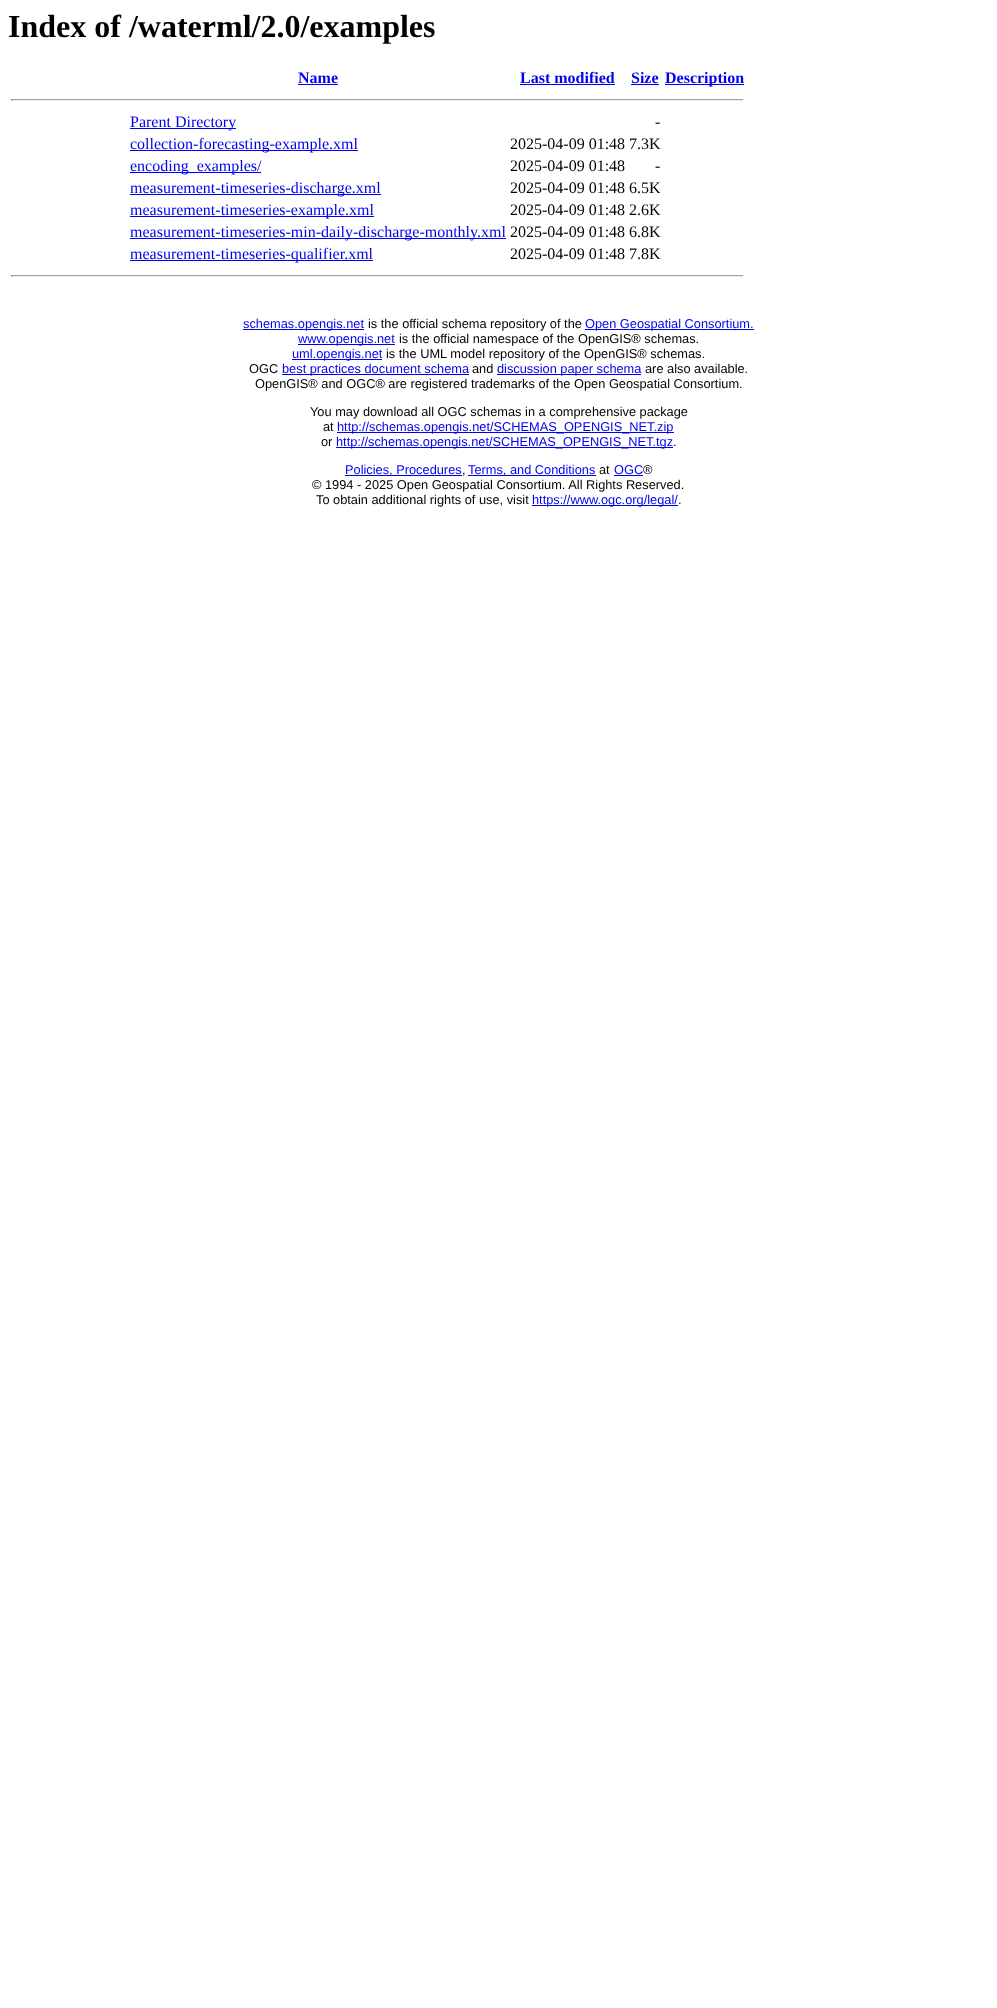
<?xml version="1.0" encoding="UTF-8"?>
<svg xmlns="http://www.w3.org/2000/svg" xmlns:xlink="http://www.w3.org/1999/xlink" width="997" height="2008">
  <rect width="100%" height="100%" fill="#ffffff" />
  <rect x="298" y="84" width="40" height="1" fill="#0000ee" />
  <rect x="520" y="84" width="95" height="1" fill="#0000ee" />
  <rect x="631" y="84" width="28" height="1" fill="#0000ee" />
  <rect x="665" y="84" width="79" height="1" fill="#0000ee" />
  <rect x="11" y="99" width="733" height="1" fill="#9f9f9f" />
  <rect x="743" y="99" width="1" height="2" fill="#eeeeee" />
  <rect x="11" y="100" width="733" height="1" fill="#eeeeee" />
  <rect x="11" y="99" width="1" height="2" fill="#9f9f9f" />
  <rect x="130" y="128" width="106" height="1" fill="#0000ee" />
  <rect x="130" y="150" width="228" height="1" fill="#0000ee" />
  <rect x="130" y="172" width="131" height="1" fill="#0000ee" />
  <rect x="130" y="194" width="251" height="1" fill="#0000ee" />
  <rect x="130" y="216" width="244" height="1" fill="#0000ee" />
  <rect x="130" y="238" width="376" height="1" fill="#0000ee" />
  <rect x="130" y="260" width="243" height="1" fill="#0000ee" />
  <rect x="11" y="275" width="733" height="1" fill="#9f9f9f" />
  <rect x="743" y="275" width="1" height="2" fill="#eeeeee" />
  <rect x="11" y="276" width="733" height="1" fill="#eeeeee" />
  <rect x="11" y="275" width="1" height="2" fill="#9f9f9f" />
  <rect x="243" y="329" width="121" height="1" fill="#0000ee" />
  <rect x="585" y="329" width="169" height="1" fill="#0000ee" />
  <rect x="298" y="344" width="97" height="1" fill="#0000ee" />
  <rect x="292" y="359" width="90" height="1" fill="#0000ee" />
  <rect x="282" y="374" width="187" height="1" fill="#0000ee" />
  <rect x="497" y="374" width="144" height="1" fill="#0000ee" />
  <rect x="337" y="432" width="337" height="1" fill="#0000ee" />
  <rect x="336" y="447" width="337" height="1" fill="#0000ee" />
  <rect x="345" y="475" width="117" height="1" fill="#0000ee" />
  <rect x="468" y="475" width="128" height="1" fill="#0000ee" />
  <rect x="614" y="475" width="29" height="1" fill="#0000ee" />
  <rect x="532" y="505" width="146" height="1" fill="#0000ee" />
  <text x="8" y="37" style="font-family: Liberation Serif; font-size: 32px; font-weight: bold; fill: #000000">Index of /waterml/2.0/examples</text>
  <text x="298" y="83" style="font-family: Liberation Serif; font-size: 16px; font-weight: bold; fill: #0000ee">Name</text>
  <text x="520" y="83" style="font-family: Liberation Serif; font-size: 16px; font-weight: bold; fill: #0000ee">Last modified</text>
  <text x="631" y="83" style="font-family: Liberation Serif; font-size: 16px; font-weight: bold; fill: #0000ee">Size</text>
  <text x="665" y="83" style="font-family: Liberation Serif; font-size: 16px; font-weight: bold; fill: #0000ee">Description</text>
  <text x="130" y="127" style="font-family: Liberation Serif; font-size: 16px; fill: #0000ee">Parent Directory</text>
  <text x="655" y="127" style="font-family: Liberation Serif; font-size: 16px; fill: #000000">-</text>
  <text x="130" y="149" style="font-family: Liberation Serif; font-size: 16px; fill: #0000ee">collection-forecasting-example.xml</text>
  <text x="510" y="149" style="font-family: Liberation Serif; font-size: 16px; fill: #000000">2025-04-09 01:48 7.3K</text>
  <text x="130" y="171" style="font-family: Liberation Serif; font-size: 16px; fill: #0000ee">encoding_examples/</text>
  <text x="510" y="171" style="font-family: Liberation Serif; font-size: 16px; fill: #000000">2025-04-09 01:48</text>
  <text x="655" y="171" style="font-family: Liberation Serif; font-size: 16px; fill: #000000">-</text>
  <text x="130" y="193" style="font-family: Liberation Serif; font-size: 16px; fill: #0000ee">measurement-timeseries-discharge.xml</text>
  <text x="510" y="193" style="font-family: Liberation Serif; font-size: 16px; fill: #000000">2025-04-09 01:48 6.5K</text>
  <text x="130" y="215" style="font-family: Liberation Serif; font-size: 16px; fill: #0000ee">measurement-timeseries-example.xml</text>
  <text x="510" y="215" style="font-family: Liberation Serif; font-size: 16px; fill: #000000">2025-04-09 01:48 2.6K</text>
  <text x="130" y="237" style="font-family: Liberation Serif; font-size: 16px; fill: #0000ee">measurement-timeseries-min-daily-discharge-monthly.xml</text>
  <text x="510" y="237" style="font-family: Liberation Serif; font-size: 16px; fill: #000000">2025-04-09 01:48 6.8K</text>
  <text x="130" y="259" style="font-family: Liberation Serif; font-size: 16px; fill: #0000ee">measurement-timeseries-qualifier.xml</text>
  <text x="510" y="259" style="font-family: Liberation Serif; font-size: 16px; fill: #000000">2025-04-09 01:48 7.8K</text>
  <text x="243" y="328" style="font-family: Liberation Sans; font-size: 12.8px; fill: #0000ee">schemas.opengis.net</text>
  <text x="368" y="328" style="font-family: Liberation Sans; font-size: 12.8px; fill: #000000">is the official schema repository of the</text>
  <text x="585" y="328" style="font-family: Liberation Sans; font-size: 12.8px; fill: #0000ee">Open Geospatial Consortium.</text>
  <text x="298" y="343" style="font-family: Liberation Sans; font-size: 12.8px; fill: #0000ee">www.opengis.net</text>
  <text x="399" y="343" style="font-family: Liberation Sans; font-size: 12.8px; fill: #000000">is the official namespace of the OpenGIS® schemas.</text>
  <text x="292" y="358" style="font-family: Liberation Sans; font-size: 12.8px; fill: #0000ee">uml.opengis.net</text>
  <text x="386" y="358" style="font-family: Liberation Sans; font-size: 12.8px; fill: #000000">is the UML model repository of the OpenGIS® schemas.</text>
  <text x="249" y="373" style="font-family: Liberation Sans; font-size: 12.8px; fill: #000000">OGC</text>
  <text x="282" y="373" style="font-family: Liberation Sans; font-size: 12.8px; fill: #0000ee">best practices document schema</text>
  <text x="472" y="373" style="font-family: Liberation Sans; font-size: 12.8px; fill: #000000">and</text>
  <text x="497" y="373" style="font-family: Liberation Sans; font-size: 12.8px; fill: #0000ee">discussion paper schema</text>
  <text x="645" y="373" style="font-family: Liberation Sans; font-size: 12.8px; fill: #000000">are also available.</text>
  <text x="255" y="388" style="font-family: Liberation Sans; font-size: 12.8px; fill: #000000">OpenGIS® and OGC® are registered trademarks of the Open Geospatial Consortium.</text>
  <text x="310" y="416" style="font-family: Liberation Sans; font-size: 12.8px; fill: #000000">You may download all OGC schemas in a comprehensive package</text>
  <text x="323" y="431" style="font-family: Liberation Sans; font-size: 12.8px; fill: #000000">at</text>
  <text x="337" y="431" style="font-family: Liberation Sans; font-size: 12.8px; fill: #0000ee">http://schemas.opengis.net/SCHEMAS_OPENGIS_NET.zip</text>
  <text x="321" y="446" style="font-family: Liberation Sans; font-size: 12.8px; fill: #000000">or</text>
  <text x="336" y="446" style="font-family: Liberation Sans; font-size: 12.8px; fill: #0000ee">http://schemas.opengis.net/SCHEMAS_OPENGIS_NET.tgz</text>
  <text x="673" y="446" style="font-family: Liberation Sans; font-size: 12.8px; fill: #000000">.</text>
  <text x="345" y="474" style="font-family: Liberation Sans; font-size: 12.8px; fill: #0000ee">Policies, Procedures</text>
  <text x="462" y="474" style="font-family: Liberation Sans; font-size: 12.8px; fill: #000000">,</text>
  <text x="468" y="474" style="font-family: Liberation Sans; font-size: 12.8px; fill: #0000ee">Terms, and Conditions</text>
  <text x="599" y="474" style="font-family: Liberation Sans; font-size: 12.8px; fill: #000000">at</text>
  <text x="614" y="474" style="font-family: Liberation Sans; font-size: 12.8px; fill: #0000ee">OGC</text>
  <text x="643" y="474" style="font-family: Liberation Sans; font-size: 12.8px; fill: #000000">®</text>
  <text x="312" y="489" style="font-family: Liberation Sans; font-size: 12.8px; fill: #000000">© 1994 - 2025 Open Geospatial Consortium. All Rights Reserved.</text>
  <text x="316" y="504" style="font-family: Liberation Sans; font-size: 12.8px; fill: #000000">To obtain additional rights of use, visit</text>
  <text x="532" y="504" style="font-family: Liberation Sans; font-size: 12.8px; fill: #0000ee">https://www.ogc.org/legal/</text>
  <text x="678" y="504" style="font-family: Liberation Sans; font-size: 12.8px; fill: #000000">.</text>
</svg>
